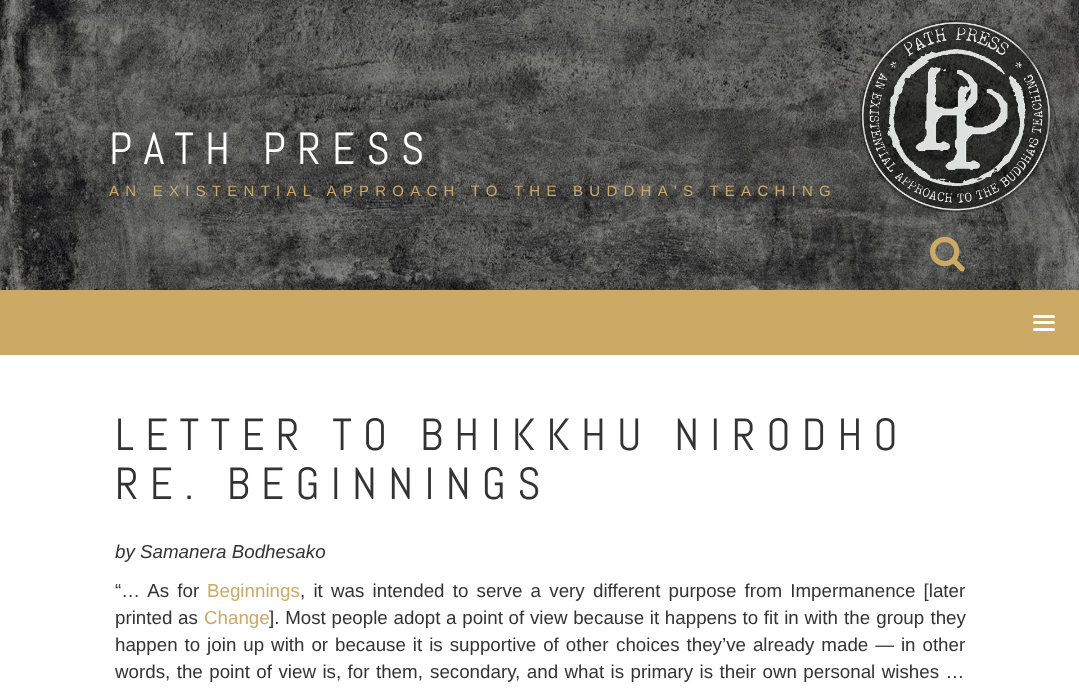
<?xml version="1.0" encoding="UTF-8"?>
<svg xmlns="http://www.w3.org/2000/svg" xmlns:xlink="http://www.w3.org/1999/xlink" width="1079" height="693">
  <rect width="100%" height="100%" fill="#ffffff" />
  <image x="0" y="0" width="1079" height="290" xlink:href="image1.png" />
  <image x="930" y="236" width="35" height="36" xlink:href="image2.png" />
  <rect y="290" width="1079" height="65" fill="#ccaa66" />
  <rect x="1033" y="315" width="22" height="3" rx="1.5" fill="#ffffff" />
  <rect x="1033" y="321" width="22" height="3" rx="1.5" fill="#ffffff" />
  <rect x="1033" y="328" width="22" height="3" rx="1.5" fill="#ffffff" />
  <text x="109" y="164" style="font-family: Abel; font-size: 45px; letter-spacing: 11.25px; fill: #ffffff">PATH PRESS</text>
  <text x="109" y="196" style="font-family: Liberation Sans; font-size: 15px; letter-spacing: 6.25px; fill: #ccaa66">AN EXISTENTIAL APPROACH TO THE BUDDHA'S TEACHING</text>
  <text x="115" y="450" style="font-family: Abel; font-size: 45px; letter-spacing: 11.25px; fill: #333333">LETTER TO BHIKKHU NIRODHO</text>
  <text x="115" y="499" style="font-family: Abel; font-size: 45px; letter-spacing: 11.25px; fill: #333333">RE. BEGINNINGS</text>
  <text x="115" y="558" style="font-family: Liberation Sans; font-size: 18.75px; font-style: italic; fill: #333333">by Samanera Bodhesako</text>
  <text x="115" y="597" word-spacing="3" style="font-family: Liberation Sans; font-size: 18.75px; fill: #333333">“… As for</text>
  <text x="207" y="597" style="font-family: Liberation Sans; font-size: 18.75px; fill: #ccaa66">Beginnings</text>
  <text x="300" y="597" word-spacing="3" style="font-family: Liberation Sans; font-size: 18.75px; fill: #333333">, it was intended to serve a very</text>
  <text x="593" y="597" word-spacing="3" style="font-family: Liberation Sans; font-size: 18.75px; fill: #333333">different purpose from Impermanence [later</text>
  <text x="115" y="624" word-spacing="0.5" style="font-family: Liberation Sans; font-size: 18.75px; fill: #333333">printed as</text>
  <text x="204" y="624" style="font-family: Liberation Sans; font-size: 18.75px; fill: #ccaa66">Change</text>
  <text x="269" y="624" word-spacing="0.5" style="font-family: Liberation Sans; font-size: 18.75px; fill: #333333">]. Most people adopt a point of view because it happens to fit in with</text>
  <text x="844" y="624" word-spacing="1" style="font-family: Liberation Sans; font-size: 18.75px; fill: #333333">the group they</text>
  <text x="115" y="651" word-spacing="1.75" style="font-family: Liberation Sans; font-size: 18.75px; fill: #333333">happen to join up with or because it is supportive of other</text>
  <text x="616" y="651" word-spacing="1.75" style="font-family: Liberation Sans; font-size: 18.75px; fill: #333333">choices they’ve already made — in other</text>
  <text x="115" y="678" word-spacing="1.25" style="font-family: Liberation Sans; font-size: 18.75px; fill: #333333">words, the point of view is, for them,</text>
  <text x="430" y="678" word-spacing="1.25" style="font-family: Liberation Sans; font-size: 18.75px; fill: #333333">secondary, and what is primary is their own personal wishes …</text>
</svg>
